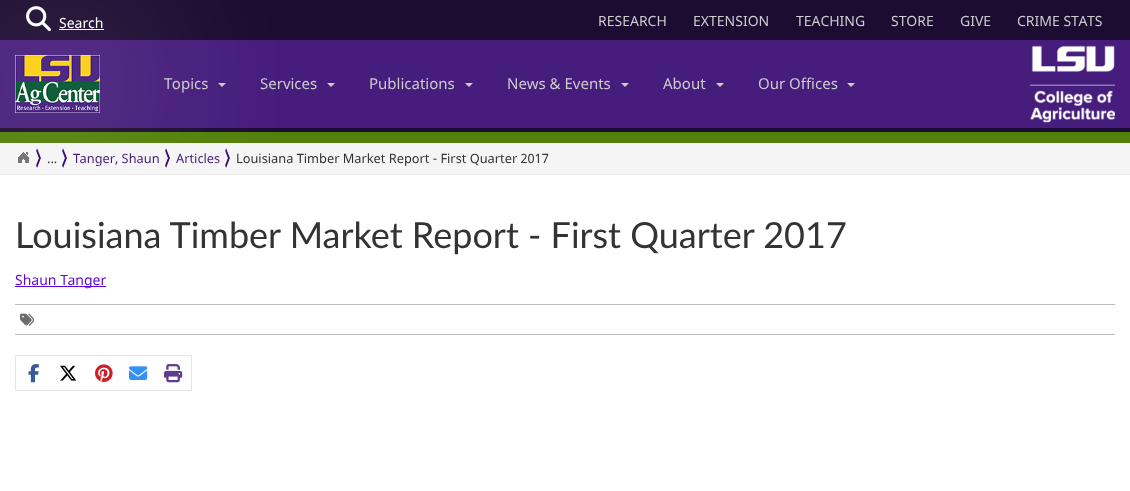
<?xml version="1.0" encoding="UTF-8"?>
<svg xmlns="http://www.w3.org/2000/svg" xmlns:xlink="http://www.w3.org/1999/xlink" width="1130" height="491">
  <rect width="100%" height="100%" fill="#ffffff" />
  <rect y="40" width="1130" height="88" fill="#461d7c" />
  <rect y="174" width="1130" height="1" fill="#e7e7e7" />
  <rect width="1130" height="40" fill="#1c0c32" />
  <rect y="128" width="1130" height="4" fill="#1c0c32" />
  <rect y="132" width="1130" height="11" fill="#53800a" />
  <rect y="143" width="1130" height="31" fill="#f5f5f5" />
  <rect x="15" y="286" width="91" height="1" fill="#5e07d0" />
  <rect x="15" y="304" width="1100" height="1" fill="#bbbbbb" />
  <rect x="15" y="334" width="1100" height="1" fill="#bbbbbb" />
  <image x="20" y="313" width="14" height="13" xlink:href="image9.png" />
  <rect x="15.5" y="355.5" width="176" height="35" fill="none" stroke="#e4e4e4" />
  <image x="28" y="364" width="11" height="19" xlink:href="image10.png" />
  <image x="60" y="365" width="17" height="16" xlink:href="image11.png" />
  <image x="95" y="364" width="18" height="18" xlink:href="image12.png" />
  <image x="129" y="366" width="19" height="14" xlink:href="image13.png" />
  <image x="164" y="364" width="19" height="19" xlink:href="image14.png" />
  <rect x="14" y="54" width="87" height="60" fill="#ffffff" fill-opacity="0.8" filter="blur(100px)" />
  <image x="26" y="6" width="25" height="26" xlink:href="image1.png" />
  <rect x="59" y="29" width="45" height="1" fill="#ffffff" />
  <image x="15" y="55" width="85" height="58" xlink:href="image2.png" />
  <image x="1029" y="45" width="86" height="78" xlink:href="image3.png" />
  <path d="M 218 83 h 8 l -4 4 z" fill="#cccccc" />
  <path d="M 327 83 h 8 l -4 4 z" fill="#cccccc" />
  <path d="M 465 83 h 8 l -4 4 z" fill="#cccccc" />
  <path d="M 621 83 h 8 l -4 4 z" fill="#cccccc" />
  <path d="M 716 83 h 8 l -4 4 z" fill="#cccccc" />
  <path d="M 847 83 h 8 l -4 4 z" fill="#cccccc" />
  <image x="36" y="148" width="5" height="20" xlink:href="image4.png" />
  <image x="18" y="152" width="11" height="11" xlink:href="image5.png" />
  <image x="62" y="148" width="5" height="20" xlink:href="image6.png" />
  <image x="165" y="148" width="5" height="20" xlink:href="image7.png" />
  <image x="225" y="148" width="5" height="20" xlink:href="image8.png" />
  <text x="59" y="28" style="font-family: Noto Sans; font-size: 14px; fill: #ffffff">Search</text>
  <text x="598" y="26" style="font-family: Noto Sans; font-size: 14px; fill: #cccccc">RESEARCH</text>
  <text x="693" y="26" style="font-family: Noto Sans; font-size: 14px; fill: #cccccc">EXTENSION</text>
  <text x="796" y="26" style="font-family: Noto Sans; font-size: 14px; fill: #cccccc">TEACHING</text>
  <text x="891" y="26" style="font-family: Noto Sans; font-size: 14px; fill: #cccccc">STORE</text>
  <text x="960" y="26" style="font-family: Noto Sans; font-size: 14px; fill: #cccccc">GIVE</text>
  <text x="1017" y="26" style="font-family: Noto Sans; font-size: 14px; fill: #cccccc">CRIME STATS</text>
  <text x="164" y="89" style="font-family: Noto Sans; font-size: 15px; fill: #cccccc">Topics</text>
  <text x="260" y="89" style="font-family: Noto Sans; font-size: 15px; fill: #cccccc">Services</text>
  <text x="369" y="89" style="font-family: Noto Sans; font-size: 15px; fill: #cccccc">Publications</text>
  <text x="507" y="89" style="font-family: Noto Sans; font-size: 15px; fill: #cccccc">News &amp; Events</text>
  <text x="663" y="89" style="font-family: Noto Sans; font-size: 15px; fill: #cccccc">About</text>
  <text x="758" y="89" style="font-family: Noto Sans; font-size: 15px; fill: #cccccc">Our Offices</text>
  <text x="47" y="163" style="font-family: Noto Sans; font-size: 12.8px; fill: #333333">...</text>
  <text x="73" y="163" style="font-family: Noto Sans; font-size: 12.8px; fill: #461d7c">Tanger, Shaun</text>
  <text x="176" y="163" style="font-family: Noto Sans; font-size: 12.8px; fill: #461d7c">Articles</text>
  <text x="236" y="163" style="font-family: Noto Sans; font-size: 12.8px; fill: #333333">Louisiana Timber Market Report - First Quarter 2017</text>
  <text x="15" y="248" style="font-family: Lato; font-size: 36px; fill: #333333">Louisiana Timber Market Report - First Quarter 2017</text>
  <text x="15" y="285" style="font-family: Noto Sans; font-size: 14px; fill: #5e07d0">Shaun Tanger</text>
</svg>
